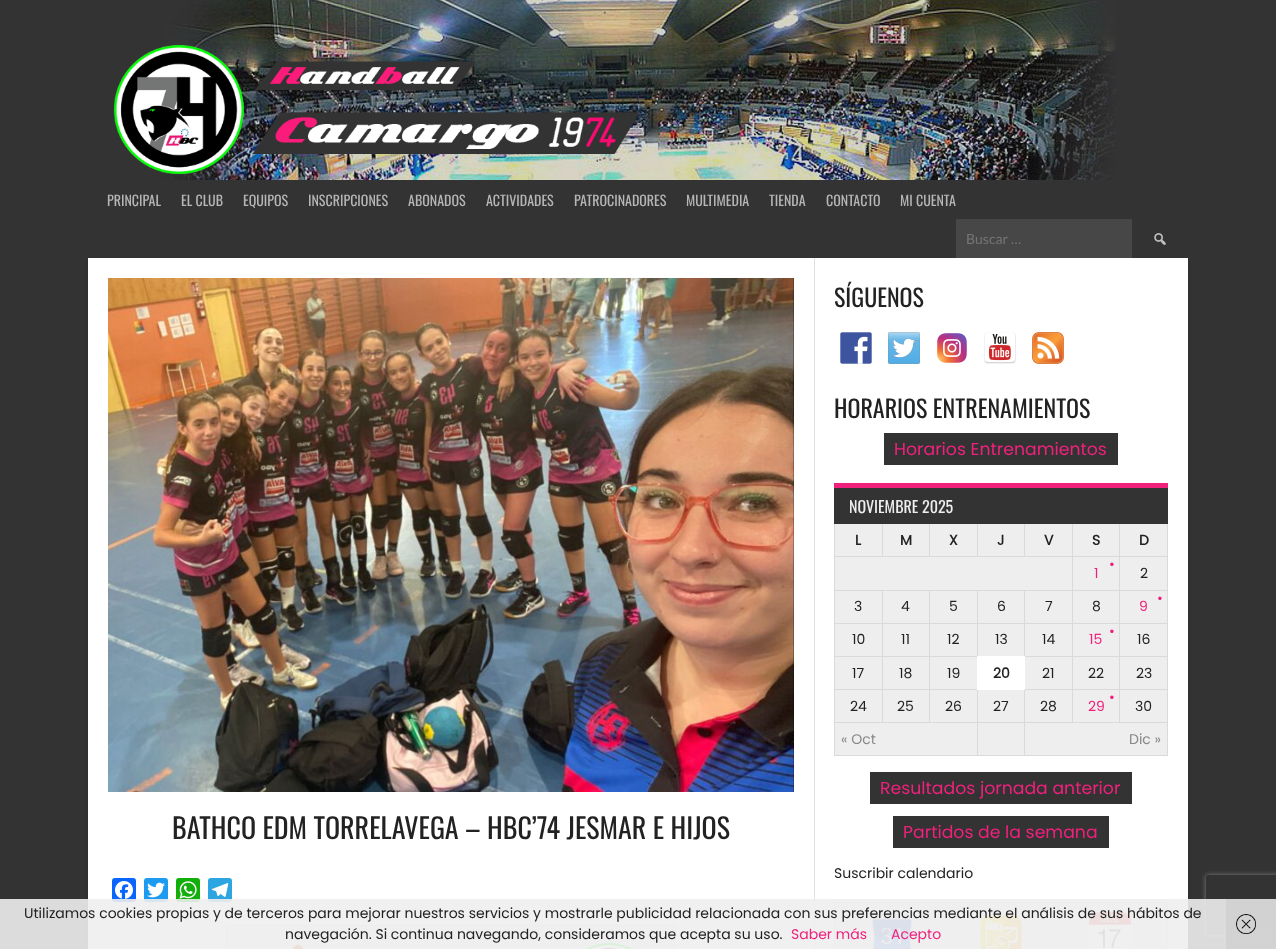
<?xml version="1.0" encoding="UTF-8"?>
<svg xmlns="http://www.w3.org/2000/svg" xmlns:xlink="http://www.w3.org/1999/xlink" width="1276" height="949">
  <defs>
    <clipPath id="clip1"><path d="M 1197 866 h 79 v 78 h -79 z m 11 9 h 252 c 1 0 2 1 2 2 v 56 c 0 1 -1 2 -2 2 h -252 c -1 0 -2 -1 -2 -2 v -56 c 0 -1 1 -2 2 -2 z" clip-rule="evenodd" /></clipPath>
  </defs>
  <rect width="100%" height="100%" fill="#333333" />
  <image x="162" y="0" width="954" height="180" xlink:href="image1.png" />
  <image x="113" y="45" width="527" height="129" xlink:href="image2.png" />
  <rect x="88" y="261" width="1100" height="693" fill="#000000" fill-opacity="0.2" filter="blur(1.5px)" />
  <rect x="956" y="219" width="176" height="39" fill="#474747" />
  <image x="1154" y="233" width="12" height="12" xlink:href="image3.png" />
  <rect x="88" y="258" width="1100" height="691" fill="#ffffff" />
  <rect x="814" y="258" width="1" height="691" fill="#e0e0e0" />
  <image x="108" y="278" width="686" height="514" xlink:href="image4.png" />
  <rect x="112" y="878" width="24" height="24" rx="3" fill="#0866ff" />
  <image x="115" y="881" width="18" height="18" xlink:href="image5.png" />
  <rect x="144" y="878" width="24" height="24" rx="3" fill="#1d9bf0" />
  <image x="147" y="882" width="18" height="16" xlink:href="image6.png" />
  <rect x="176" y="878" width="24" height="24" rx="3" fill="#12af0a" />
  <image x="179" y="881" width="18" height="18" xlink:href="image7.png" />
  <rect x="208" y="878" width="24" height="24" rx="3" fill="#2ca5e0" />
  <image x="211" y="883" width="18" height="14" xlink:href="image8.png" />
  <rect x="227" y="926" width="448" height="23" fill="#eeeeee" />
  <rect x="226" y="925" width="450" height="1" fill="#dadada" />
  <rect x="675" y="925" width="1" height="24" fill="#dadada" />
  <rect x="226" y="925" width="1" height="24" fill="#dadada" />
  <image x="293" y="944" width="11" height="5" xlink:href="image9.png" />
  <image x="585" y="942" width="48" height="7" xlink:href="image10.png" />
  <image x="840" y="332" width="32" height="32" xlink:href="image11.png" />
  <image x="888" y="332" width="32" height="32" xlink:href="image12.png" />
  <image x="937" y="333" width="30" height="30" xlink:href="image13.png" />
  <image x="984" y="332" width="32" height="32" xlink:href="image14.png" />
  <image x="1032" y="332" width="32" height="32" xlink:href="image15.png" />
  <rect x="884" y="433" width="234" height="32" fill="#333333" />
  <rect x="835" y="524" width="332" height="231" fill="#eeeeee" />
  <rect x="1167" y="524" width="1" height="232" fill="#dadada" />
  <rect x="834" y="755" width="334" height="1" fill="#dadada" />
  <rect x="834" y="524" width="1" height="232" fill="#dadada" />
  <rect x="1119" y="556" width="49" height="1" fill="#dadada" />
  <rect x="1119" y="590" width="49" height="1" fill="#dadada" />
  <rect x="1119" y="623" width="49" height="1" fill="#dadada" />
  <rect x="1119" y="656" width="49" height="1" fill="#dadada" />
  <rect x="1119" y="689" width="49" height="1" fill="#dadada" />
  <rect x="1119" y="722" width="49" height="1" fill="#dadada" />
  <rect x="1119" y="689" width="1" height="34" fill="#dadada" />
  <rect x="1072" y="689" width="48" height="1" fill="#dadada" />
  <rect x="1119" y="656" width="1" height="34" fill="#dadada" />
  <rect x="1072" y="656" width="48" height="1" fill="#dadada" />
  <rect x="1119" y="623" width="1" height="34" fill="#dadada" />
  <rect x="1072" y="623" width="48" height="1" fill="#dadada" />
  <rect x="1119" y="590" width="1" height="34" fill="#dadada" />
  <rect x="1072" y="590" width="48" height="1" fill="#dadada" />
  <rect x="1119" y="556" width="1" height="35" fill="#dadada" />
  <rect x="1072" y="556" width="48" height="1" fill="#dadada" />
  <rect x="1072" y="722" width="48" height="1" fill="#dadada" />
  <rect x="1072" y="689" width="1" height="34" fill="#dadada" />
  <rect x="1024" y="689" width="49" height="1" fill="#dadada" />
  <rect x="1072" y="656" width="1" height="34" fill="#dadada" />
  <rect x="1024" y="656" width="49" height="1" fill="#dadada" />
  <rect x="1072" y="623" width="1" height="34" fill="#dadada" />
  <rect x="1024" y="623" width="49" height="1" fill="#dadada" />
  <rect x="1072" y="590" width="1" height="34" fill="#dadada" />
  <rect x="1024" y="590" width="49" height="1" fill="#dadada" />
  <rect x="1072" y="556" width="1" height="35" fill="#dadada" />
  <rect x="834" y="556" width="239" height="1" fill="#dadada" />
  <rect x="882" y="523" width="1" height="34" fill="#dadada" />
  <rect x="929" y="523" width="1" height="34" fill="#dadada" />
  <rect x="977" y="523" width="1" height="34" fill="#dadada" />
  <rect x="1024" y="523" width="1" height="34" fill="#dadada" />
  <rect x="1072" y="523" width="1" height="34" fill="#dadada" />
  <rect x="1119" y="523" width="1" height="34" fill="#dadada" />
  <rect x="834" y="488" width="334" height="36" fill="#333333" />
  <rect x="834" y="483" width="334" height="5" fill="#f0207d" />
  <rect x="1024" y="623" width="1" height="34" fill="#dadada" />
  <rect x="977" y="623" width="48" height="1" fill="#dadada" />
  <rect x="1024" y="590" width="1" height="34" fill="#dadada" />
  <rect x="977" y="590" width="48" height="1" fill="#dadada" />
  <rect x="929" y="656" width="49" height="1" fill="#dadada" />
  <rect x="977" y="623" width="1" height="34" fill="#dadada" />
  <rect x="929" y="623" width="49" height="1" fill="#dadada" />
  <rect x="977" y="590" width="1" height="34" fill="#dadada" />
  <rect x="929" y="590" width="49" height="1" fill="#dadada" />
  <rect x="1024" y="722" width="49" height="1" fill="#dadada" />
  <rect x="1024" y="689" width="1" height="34" fill="#dadada" />
  <rect x="977" y="722" width="48" height="1" fill="#dadada" />
  <rect x="977" y="689" width="1" height="34" fill="#dadada" />
  <rect x="929" y="689" width="49" height="1" fill="#dadada" />
  <rect x="929" y="722" width="49" height="1" fill="#dadada" />
  <rect x="929" y="689" width="1" height="34" fill="#dadada" />
  <rect x="882" y="689" width="48" height="1" fill="#dadada" />
  <rect x="929" y="656" width="1" height="34" fill="#dadada" />
  <rect x="882" y="656" width="48" height="1" fill="#dadada" />
  <rect x="929" y="623" width="1" height="34" fill="#dadada" />
  <rect x="882" y="623" width="48" height="1" fill="#dadada" />
  <rect x="929" y="590" width="1" height="34" fill="#dadada" />
  <rect x="882" y="590" width="48" height="1" fill="#dadada" />
  <rect x="882" y="722" width="48" height="1" fill="#dadada" />
  <rect x="882" y="689" width="1" height="34" fill="#dadada" />
  <rect x="834" y="689" width="49" height="1" fill="#dadada" />
  <rect x="882" y="656" width="1" height="34" fill="#dadada" />
  <rect x="834" y="656" width="49" height="1" fill="#dadada" />
  <rect x="882" y="623" width="1" height="34" fill="#dadada" />
  <rect x="834" y="623" width="49" height="1" fill="#dadada" />
  <rect x="882" y="590" width="1" height="34" fill="#dadada" />
  <rect x="834" y="590" width="49" height="1" fill="#dadada" />
  <rect x="977" y="656" width="48" height="34" fill="#ffffff" />
  <rect x="834" y="722" width="49" height="1" fill="#dadada" />
  <rect x="977" y="722" width="1" height="34" fill="#dadada" />
  <rect x="1024" y="722" width="1" height="34" fill="#dadada" />
  <rect x="870" y="772" width="262" height="32" fill="#333333" />
  <rect x="893" y="816" width="216" height="32" fill="#333333" />
  <rect x="835" y="903" width="332" height="46" fill="#eeeeee" />
  <rect x="834" y="902" width="334" height="1" fill="#dadada" />
  <rect x="1167" y="902" width="1" height="47" fill="#dadada" />
  <rect x="834" y="902" width="1" height="47" fill="#dadada" />
  <image x="872" y="913" width="40" height="36" xlink:href="image16.png" />
  <image x="980" y="915" width="42" height="34" xlink:href="image17.png" />
  <image x="1089" y="912" width="42" height="37" xlink:href="image18.png" />
  <g clip-path="url(#clip1)">
    <rect x="1206" y="875" width="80" height="60" rx="2" fill="#808080" filter="blur(2.5px)" />
  </g>
  <rect y="899" width="1276" height="50" fill="#eeeeee" fill-opacity="0.9" />
  <rect x="1226" y="899" width="50" height="50" fill="#cccccc" fill-opacity="0.6" />
  <image x="1236" y="914" width="20" height="20" xlink:href="image19.png" />
  <text x="107" y="206" style="font-family: Oswald; font-size: 14px; fill: #b6b6b6">PRINCIPAL</text>
  <text x="181" y="206" style="font-family: Oswald; font-size: 14px; fill: #b6b6b6">EL CLUB</text>
  <text x="243" y="206" style="font-family: Oswald; font-size: 14px; fill: #b6b6b6">EQUIPOS</text>
  <text x="308" y="206" style="font-family: Oswald; font-size: 14px; fill: #b6b6b6">INSCRIPCIONES</text>
  <text x="408" y="206" style="font-family: Oswald; font-size: 14px; fill: #b6b6b6">ABONADOS</text>
  <text x="486" y="206" style="font-family: Oswald; font-size: 14px; fill: #b6b6b6">ACTIVIDADES</text>
  <text x="574" y="206" style="font-family: Oswald; font-size: 14px; fill: #b6b6b6">PATROCINADORES</text>
  <text x="686" y="206" style="font-family: Oswald; font-size: 14px; fill: #b6b6b6">MULTIMEDIA</text>
  <text x="769" y="206" style="font-family: Oswald; font-size: 14px; fill: #b6b6b6">TIENDA</text>
  <text x="826" y="206" style="font-family: Oswald; font-size: 14px; fill: #b6b6b6">CONTACTO</text>
  <text x="900" y="206" style="font-family: Oswald; font-size: 14px; fill: #b6b6b6">MI CUENTA</text>
  <text x="966" y="244" style="font-family: Lato; font-size: 14px; fill: #757575">Buscar …</text>
  <text x="172" y="839" style="font-family: Oswald; font-size: 28px; fill: #222222">BATHCO EDM TORRELAVEGA – HBC’74 JESMAR E HIJOS</text>
  <text x="834" y="307" style="font-family: Oswald; font-size: 24px; fill: #222222">SÍGUENOS</text>
  <text x="834" y="418" style="font-family: Oswald; font-size: 24px; fill: #222222">HORARIOS ENTRENAMIENTOS</text>
  <text x="894" y="455" style="font-family: Poppins; font-size: 17.3px; fill: #f0207d">Horarios Entrenamientos</text>
  <text x="849" y="513" style="font-family: Oswald; font-size: 16px; fill: #eeeeee">NOVIEMBRE 2025</text>
  <text x="855" y="545" style="font-family: Poppins; font-size: 14px; font-weight: bold; fill: #222222">L</text>
  <text x="900" y="545" style="font-family: Poppins; font-size: 14px; font-weight: bold; fill: #222222">M</text>
  <text x="949" y="545" style="font-family: Poppins; font-size: 14px; font-weight: bold; fill: #222222">X</text>
  <text x="997" y="545" style="font-family: Poppins; font-size: 14px; font-weight: bold; fill: #222222">J</text>
  <text x="1044" y="545" style="font-family: Poppins; font-size: 14px; font-weight: bold; fill: #222222">V</text>
  <text x="1092" y="545" style="font-family: Poppins; font-size: 14px; font-weight: bold; fill: #222222">S</text>
  <text x="1139" y="545" style="font-family: Poppins; font-size: 14px; font-weight: bold; fill: #222222">D</text>
  <text x="1109" y="569" style="font-family: Poppins; font-size: 14px; fill: #f0207d">•</text>
  <text x="1094" y="578" style="font-family: Poppins; font-size: 14px; fill: #f0207d">1</text>
  <text x="1140" y="578" style="font-family: Poppins; font-size: 14px; fill: #222222">2</text>
  <text x="854" y="611" style="font-family: Poppins; font-size: 14px; fill: #222222">3</text>
  <text x="901" y="611" style="font-family: Poppins; font-size: 14px; fill: #222222">4</text>
  <text x="949" y="611" style="font-family: Poppins; font-size: 14px; fill: #222222">5</text>
  <text x="997" y="611" style="font-family: Poppins; font-size: 14px; fill: #222222">6</text>
  <text x="1045" y="611" style="font-family: Poppins; font-size: 14px; fill: #222222">7</text>
  <text x="1092" y="611" style="font-family: Poppins; font-size: 14px; fill: #222222">8</text>
  <text x="1157" y="603" style="font-family: Poppins; font-size: 14px; fill: #f0207d">•</text>
  <text x="1139" y="611" style="font-family: Poppins; font-size: 14px; fill: #f0207d">9</text>
  <text x="852" y="644" style="font-family: Poppins; font-size: 14px; fill: #222222">10</text>
  <text x="901" y="644" style="font-family: Poppins; font-size: 14px; fill: #222222">11</text>
  <text x="947" y="644" style="font-family: Poppins; font-size: 14px; fill: #222222">12</text>
  <text x="995" y="644" style="font-family: Poppins; font-size: 14px; fill: #222222">13</text>
  <text x="1042" y="644" style="font-family: Poppins; font-size: 14px; fill: #222222">14</text>
  <text x="1109" y="636" style="font-family: Poppins; font-size: 14px; fill: #f0207d">•</text>
  <text x="1089" y="644" style="font-family: Poppins; font-size: 14px; fill: #f0207d">15</text>
  <text x="1137" y="644" style="font-family: Poppins; font-size: 14px; fill: #222222">16</text>
  <text x="852" y="678" style="font-family: Poppins; font-size: 14px; fill: #222222">17</text>
  <text x="899" y="678" style="font-family: Poppins; font-size: 14px; fill: #222222">18</text>
  <text x="947" y="678" style="font-family: Poppins; font-size: 14px; fill: #222222">19</text>
  <text x="993" y="678" style="font-family: Poppins; font-size: 14px; font-weight: bold; fill: #222222">20</text>
  <text x="1042" y="678" style="font-family: Poppins; font-size: 14px; fill: #222222">21</text>
  <text x="1088" y="678" style="font-family: Poppins; font-size: 14px; fill: #222222">22</text>
  <text x="1136" y="678" style="font-family: Poppins; font-size: 14px; fill: #222222">23</text>
  <text x="850" y="711" style="font-family: Poppins; font-size: 14px; fill: #222222">24</text>
  <text x="897" y="711" style="font-family: Poppins; font-size: 14px; fill: #222222">25</text>
  <text x="945" y="711" style="font-family: Poppins; font-size: 14px; fill: #222222">26</text>
  <text x="993" y="711" style="font-family: Poppins; font-size: 14px; fill: #222222">27</text>
  <text x="1040" y="711" style="font-family: Poppins; font-size: 14px; fill: #222222">28</text>
  <text x="1109" y="702" style="font-family: Poppins; font-size: 14px; fill: #f0207d">•</text>
  <text x="1088" y="711" style="font-family: Poppins; font-size: 14px; fill: #f0207d">29</text>
  <text x="1135" y="711" style="font-family: Poppins; font-size: 14px; fill: #222222">30</text>
  <text x="841" y="744" style="font-family: Poppins; font-size: 14px; fill: #888888">« Oct</text>
  <text x="1129" y="744" style="font-family: Poppins; font-size: 14px; fill: #888888">Dic »</text>
  <text x="880" y="794" style="font-family: Poppins; font-size: 17.3px; fill: #f0207d">Resultados jornada anterior</text>
  <text x="903" y="838" style="font-family: Poppins; font-size: 17.3px; fill: #f0207d">Partidos de la semana</text>
  <text x="834" y="878" style="font-family: Poppins; font-size: 14px; fill: #222222">Suscribir calendario</text>
  <text x="24" y="918" style="font-family: Poppins; font-size: 14px; fill: #222222">Utilizamos cookies propias y de terceros para mejorar nuestros servicios y mostrarle publicidad relacionada con sus preferencias mediante el análisis de sus hábitos de</text>
  <text x="285" y="939" style="font-family: Poppins; font-size: 14px; fill: #222222">navegación. Si continua navegando, consideramos que acepta su uso.</text>
  <text x="791" y="939" style="font-family: Poppins; font-size: 14px; fill: #f0207d">Saber más</text>
  <text x="891" y="939" style="font-family: Poppins; font-size: 14px; fill: #f0207d">Acepto</text>
</svg>
